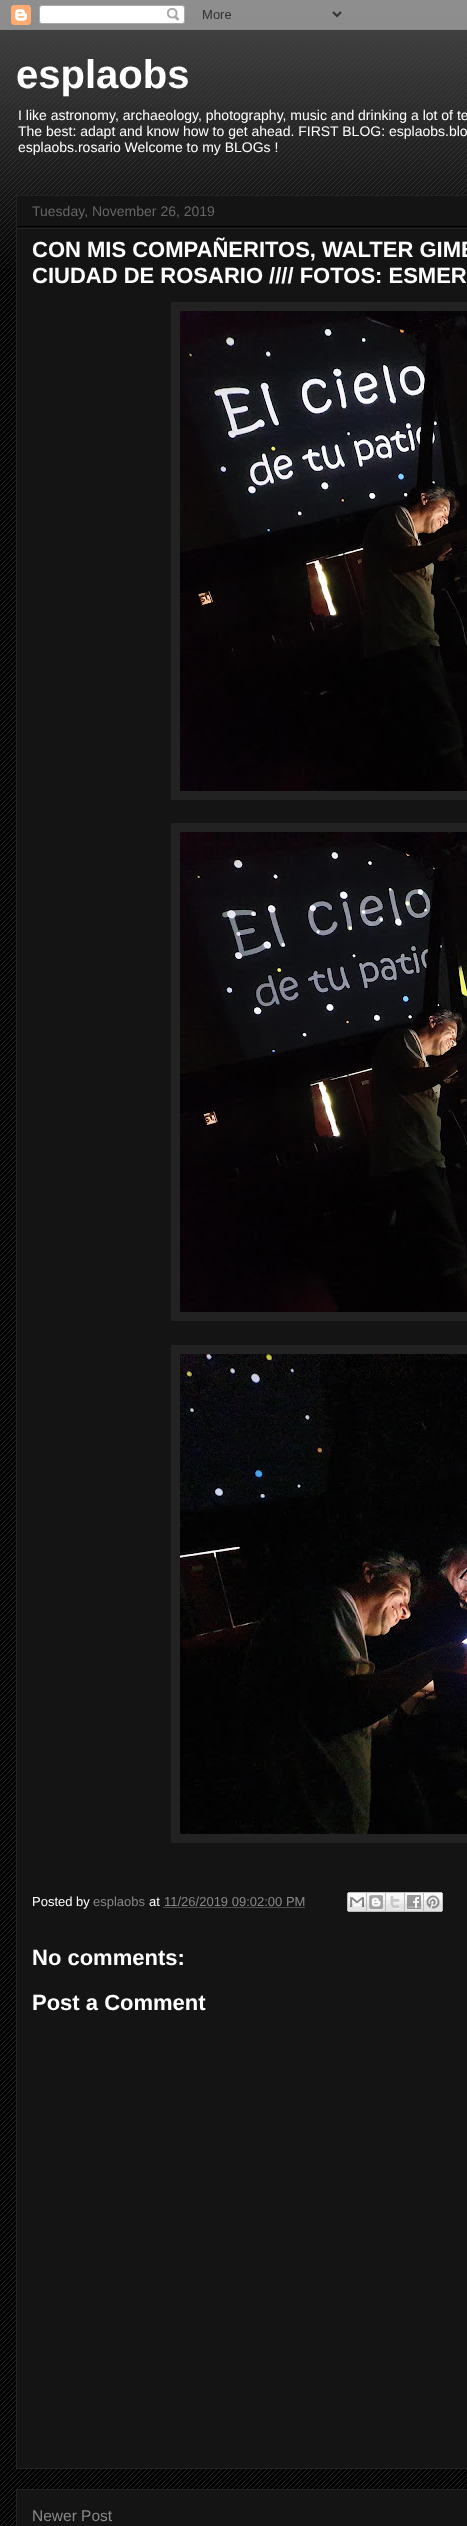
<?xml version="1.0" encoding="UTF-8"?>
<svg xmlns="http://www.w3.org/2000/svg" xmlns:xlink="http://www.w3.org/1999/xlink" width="467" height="2526">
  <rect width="100%" height="100%" fill="#000000" />
  <image x="0" y="13" width="467" height="2513" xlink:href="image1.png" />
  <image x="0" y="0" width="467" height="268" xlink:href="image2.png" />
  <image x="0" y="0" width="467" height="30" xlink:href="image3.png" />
  <rect x="16.5" y="195.5" width="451" height="2273" fill="#141414" stroke="#222222" />
  <rect x="17" y="226" width="450" height="1" fill="#000000" />
  <rect x="17" y="228" width="450" height="1" fill="#222222" />
  <rect x="171" y="302" width="296" height="498" fill="#222222" />
  <image x="180" y="311" width="287" height="480" xlink:href="image4.png" />
  <rect x="171" y="823" width="296" height="498" fill="#222222" />
  <image x="180" y="832" width="287" height="480" xlink:href="image5.png" />
  <rect x="171" y="1345" width="296" height="498" fill="#222222" />
  <image x="180" y="1354" width="287" height="480" xlink:href="image6.png" />
  <path d="M 163.5 1907.5 h 141.5" fill="none" stroke="#888888" stroke-dasharray="1 1" />
  <image x="347" y="1892" width="20" height="20" xlink:href="image7.png" />
  <image x="367" y="1892" width="19" height="20" xlink:href="image8.png" />
  <image x="386" y="1892" width="19" height="20" xlink:href="image9.png" />
  <image x="405" y="1892" width="19" height="20" xlink:href="image10.png" />
  <image x="424" y="1892" width="19" height="20" xlink:href="image11.png" />
  <rect x="16.5" y="2489.5" width="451" height="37" fill="#141414" stroke="#222222" />
  <text x="16" y="88" style="font-family: Liberation Sans; font-size: 40px; font-weight: bold; fill: #ffffff">esplaobs</text>
  <text x="18" y="120" style="font-family: Liberation Sans; font-size: 14px; fill: #ffffff">I like astronomy, archaeology, photography, music and drinking a lot of te</text>
  <text x="18" y="136" style="font-family: Liberation Sans; font-size: 14px; fill: #ffffff">The best: adapt and know how to get ahead. FIRST BLOG: esplaobs.blo</text>
  <text x="18" y="152" style="font-family: Liberation Sans; font-size: 14px; fill: #ffffff">esplaobs.rosario Welcome to my BLOGs !</text>
  <text x="32" y="216" style="font-family: Liberation Sans; font-size: 14px; fill: #666666">Tuesday, November 26, 2019</text>
  <text x="32" y="257" style="font-family: Liberation Sans; font-size: 22px; font-weight: bold; fill: #ffffff">CON MIS COMPAÑERITOS, WALTER GIME</text>
  <text x="32" y="283" style="font-family: Liberation Sans; font-size: 22px; font-weight: bold; fill: #ffffff">CIUDAD DE ROSARIO //// FOTOS: ESMER</text>
  <text x="32" y="1906" style="font-family: Liberation Sans; font-size: 13px; fill: #ffffff">Posted by</text>
  <text x="93" y="1906" style="font-family: Liberation Sans; font-size: 13px; fill: #888888">esplaobs</text>
  <text x="149" y="1906" style="font-family: Liberation Sans; font-size: 13px; fill: #ffffff">at</text>
  <text x="164" y="1906" style="font-family: Liberation Sans; font-size: 13px; fill: #888888">11/26/2019 09:02:00 PM</text>
  <text x="32" y="1965" style="font-family: Liberation Sans; font-size: 22px; font-weight: bold; fill: #ffffff">No comments:</text>
  <text x="32" y="2010" style="font-family: Liberation Sans; font-size: 22px; font-weight: bold; fill: #ffffff">Post a Comment</text>
  <text x="32" y="2521" style="font-family: Liberation Sans; font-size: 15.5px; fill: #888888">Newer Post</text>
</svg>
